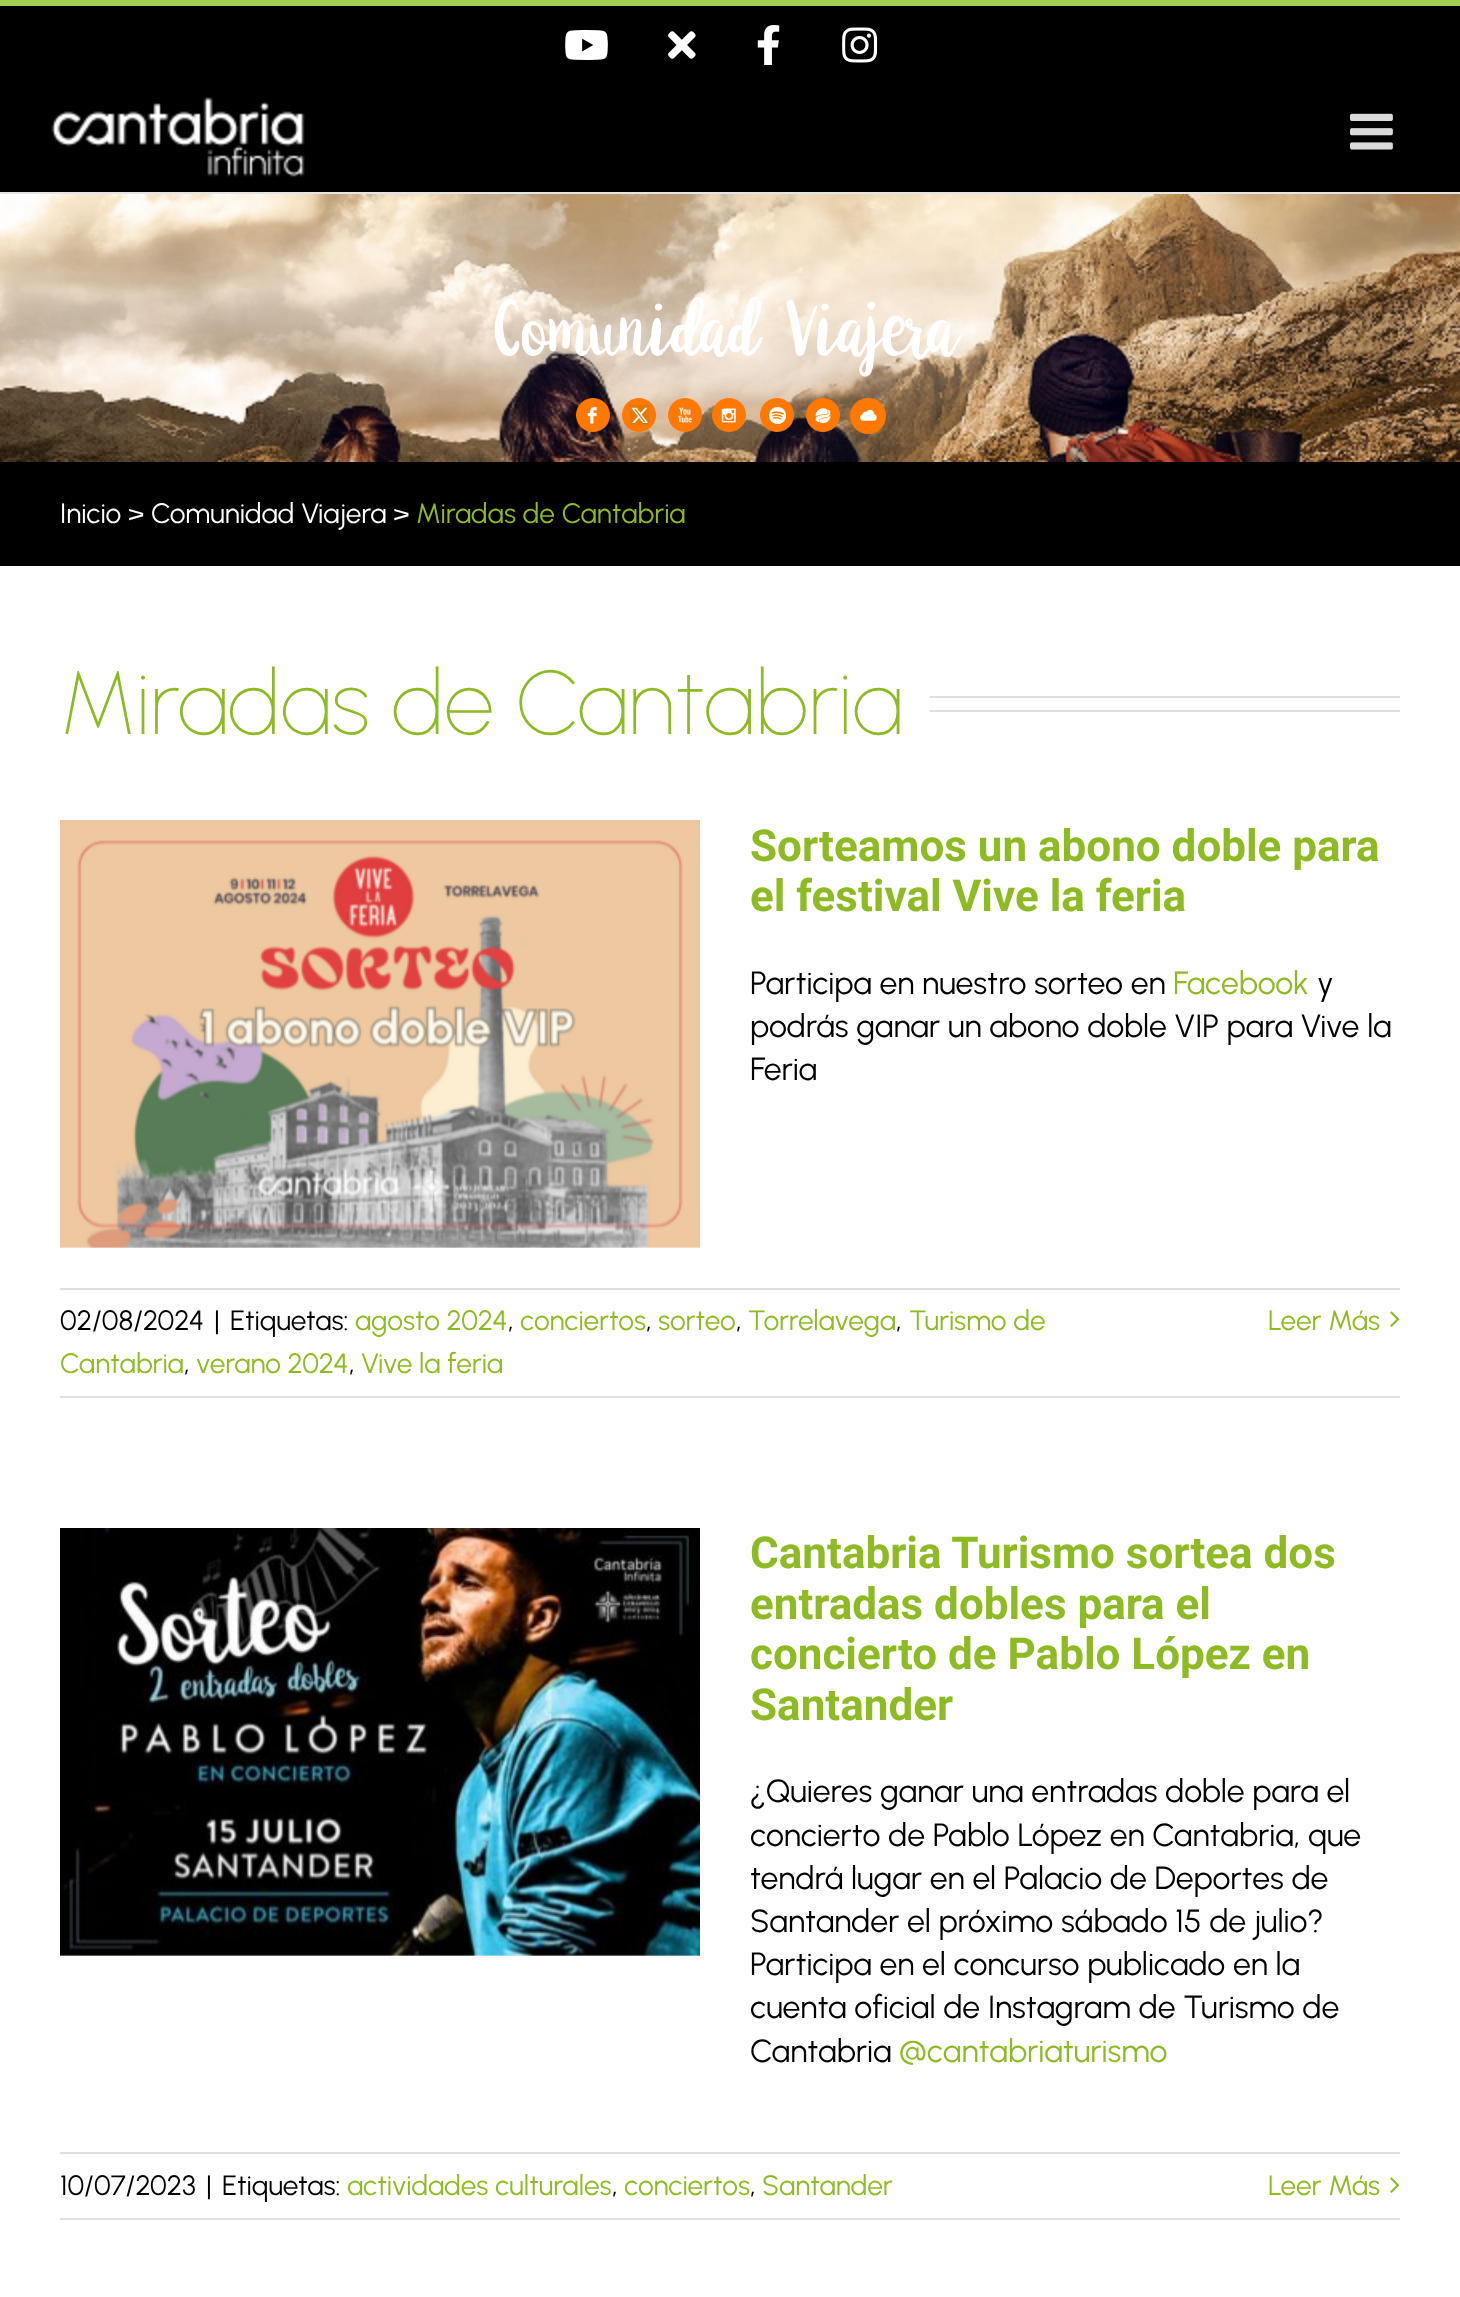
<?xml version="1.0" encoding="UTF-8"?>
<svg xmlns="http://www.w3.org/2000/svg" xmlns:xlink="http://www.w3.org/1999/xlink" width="1460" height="2297">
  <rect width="100%" height="100%" fill="#ffffff" />
  <rect y="6" width="1460" height="186" fill="#000000" />
  <rect width="1460" height="6" fill="#a0ce4e" />
  <image x="565" y="30" width="43" height="30" xlink:href="image1.png" />
  <image x="668" y="31" width="28" height="28" xlink:href="image2.png" />
  <image x="757" y="25" width="23" height="40" xlink:href="image3.png" />
  <image x="842" y="27" width="36" height="36" xlink:href="image4.png" />
  <rect y="192" width="1460" height="2" fill="#e5e5e5" />
  <image x="51" y="97" width="254" height="80" xlink:href="image5.png" />
  <image x="1350" y="113" width="43" height="37" xlink:href="image6.png" />
  <image x="0" y="194" width="1460" height="268" xlink:href="image7.png" />
  <image x="494" y="297" width="468" height="80" xlink:href="image8.png" />
  <image x="576" y="398" width="34" height="34" xlink:href="image9.png" />
  <image x="622" y="398" width="34" height="34" xlink:href="image10.png" />
  <image x="668" y="398" width="34" height="34" xlink:href="image11.png" />
  <image x="712" y="398" width="34" height="34" xlink:href="image12.png" />
  <image x="760" y="398" width="34" height="34" xlink:href="image13.png" />
  <image x="806" y="398" width="34" height="34" xlink:href="image14.png" />
  <image x="850" y="398" width="36" height="36" xlink:href="image15.png" />
  <rect y="462" width="1460" height="104" fill="#000000" />
  <rect x="930" y="696" width="470" height="2" fill="#e0dede" />
  <rect x="930" y="710" width="470" height="2" fill="#e0dede" />
  <image x="60" y="820" width="640" height="428" xlink:href="image16.png" />
  <rect x="60" y="1288" width="1340" height="2" fill="#e0dede" />
  <rect x="60" y="1396" width="1340" height="2" fill="#e0dede" />
  <image x="1390" y="1311" width="10" height="16" xlink:href="image17.png" />
  <image x="60" y="1528" width="640" height="428" xlink:href="image18.png" />
  <rect x="60" y="2152" width="1340" height="2" fill="#e0dede" />
  <rect x="60" y="2218" width="1340" height="2" fill="#e0dede" />
  <image x="1390" y="2177" width="10" height="16" xlink:href="image17.png" />
  <text x="60" y="523" style="font-family: Urbanist; font-size: 28px; fill: #ffffff">Inicio &gt; Comunidad Viajera &gt;</text>
  <text x="416" y="523" style="font-family: Urbanist; font-size: 28px; fill: #8ebb23">Miradas de Cantabria</text>
  <text x="60" y="734" style="font-family: Urbanist; font-size: 90px; font-weight: 100; fill: #8ebb23">Miradas de Cantabria</text>
  <text x="750" y="861" style="font-family: Roboto; font-size: 44px; font-weight: bold; fill: #8ebb23">Sorteamos un abono doble para</text>
  <text x="750" y="911" style="font-family: Roboto; font-size: 44px; font-weight: bold; fill: #8ebb23">el festival Vive la feria</text>
  <text x="750" y="994" style="font-family: Urbanist; font-size: 32px; fill: #000000">Participa en nuestro sorteo en</text>
  <text x="1173" y="994" style="font-family: Urbanist; font-size: 32px; fill: #8ebb23">Facebook</text>
  <text x="1317" y="994" style="font-family: Urbanist; font-size: 32px; fill: #000000">y</text>
  <text x="750" y="1037" style="font-family: Urbanist; font-size: 32px; fill: #000000">podrás ganar un abono doble VIP para Vive la</text>
  <text x="750" y="1080" style="font-family: Urbanist; font-size: 32px; fill: #000000">Feria</text>
  <text x="60" y="1330" style="font-family: Urbanist; font-size: 28px; fill: #000000">02/08/2024</text>
  <text x="214" y="1330" style="font-family: Urbanist; font-size: 28px; fill: #000000">|</text>
  <text x="230" y="1330" style="font-family: Urbanist; font-size: 28px; fill: #000000">Etiquetas:</text>
  <text x="355" y="1330" style="font-family: Urbanist; font-size: 28px; fill: #8ebb23">agosto 2024</text>
  <text x="508" y="1330" style="font-family: Urbanist; font-size: 28px; fill: #000000">,</text>
  <text x="520" y="1330" style="font-family: Urbanist; font-size: 28px; fill: #8ebb23">conciertos</text>
  <text x="646" y="1330" style="font-family: Urbanist; font-size: 28px; fill: #000000">,</text>
  <text x="658" y="1330" style="font-family: Urbanist; font-size: 28px; fill: #8ebb23">sorteo</text>
  <text x="736" y="1330" style="font-family: Urbanist; font-size: 28px; fill: #000000">,</text>
  <text x="748" y="1330" style="font-family: Urbanist; font-size: 28px; fill: #8ebb23">Torrelavega</text>
  <text x="896" y="1330" style="font-family: Urbanist; font-size: 28px; fill: #000000">,</text>
  <text x="909" y="1330" style="font-family: Urbanist; font-size: 28px; fill: #8ebb23">Turismo de</text>
  <text x="60" y="1373" style="font-family: Urbanist; font-size: 28px; fill: #8ebb23">Cantabria</text>
  <text x="184" y="1373" style="font-family: Urbanist; font-size: 28px; fill: #000000">,</text>
  <text x="196" y="1373" style="font-family: Urbanist; font-size: 28px; fill: #8ebb23">verano 2024</text>
  <text x="349" y="1373" style="font-family: Urbanist; font-size: 28px; fill: #000000">,</text>
  <text x="361" y="1373" style="font-family: Urbanist; font-size: 28px; fill: #8ebb23">Vive la feria</text>
  <text x="1268" y="1330" style="font-family: Urbanist; font-size: 28px; fill: #8ebb23">Leer Más</text>
  <text x="750" y="1568" style="font-family: Roboto; font-size: 44px; font-weight: bold; fill: #8ebb23">Cantabria Turismo sortea dos</text>
  <text x="750" y="1619" style="font-family: Roboto; font-size: 44px; font-weight: bold; fill: #8ebb23">entradas dobles para el</text>
  <text x="750" y="1669" style="font-family: Roboto; font-size: 44px; font-weight: bold; fill: #8ebb23">concierto de Pablo López en</text>
  <text x="750" y="1720" style="font-family: Roboto; font-size: 44px; font-weight: bold; fill: #8ebb23">Santander</text>
  <text x="750" y="1802" style="font-family: Urbanist; font-size: 32px; fill: #000000">¿Quieres ganar una entradas doble para el</text>
  <text x="750" y="1846" style="font-family: Urbanist; font-size: 32px; fill: #000000">concierto de Pablo López en Cantabria, que</text>
  <text x="750" y="1889" style="font-family: Urbanist; font-size: 32px; fill: #000000">tendrá lugar en el Palacio de Deportes de</text>
  <text x="750" y="1932" style="font-family: Urbanist; font-size: 32px; fill: #000000">Santander el próximo sábado 15 de julio?</text>
  <text x="750" y="1975" style="font-family: Urbanist; font-size: 32px; fill: #000000">Participa en el concurso publicado en la</text>
  <text x="750" y="2018" style="font-family: Urbanist; font-size: 32px; fill: #000000">cuenta oficial de Instagram de Turismo de</text>
  <text x="750" y="2062" style="font-family: Urbanist; font-size: 32px; fill: #000000">Cantabria</text>
  <text x="899" y="2062" style="font-family: Urbanist; font-size: 32px; fill: #8ebb23">@cantabriaturismo</text>
  <text x="60" y="2195" style="font-family: Urbanist; font-size: 28px; fill: #000000">10/07/2023</text>
  <text x="206" y="2195" style="font-family: Urbanist; font-size: 28px; fill: #000000">|</text>
  <text x="222" y="2195" style="font-family: Urbanist; font-size: 28px; fill: #000000">Etiquetas:</text>
  <text x="347" y="2195" style="font-family: Urbanist; font-size: 28px; fill: #8ebb23">actividades culturales</text>
  <text x="612" y="2195" style="font-family: Urbanist; font-size: 28px; fill: #000000">,</text>
  <text x="624" y="2195" style="font-family: Urbanist; font-size: 28px; fill: #8ebb23">conciertos</text>
  <text x="750" y="2195" style="font-family: Urbanist; font-size: 28px; fill: #000000">,</text>
  <text x="762" y="2195" style="font-family: Urbanist; font-size: 28px; fill: #8ebb23">Santander</text>
  <text x="1268" y="2195" style="font-family: Urbanist; font-size: 28px; fill: #8ebb23">Leer Más</text>
</svg>
